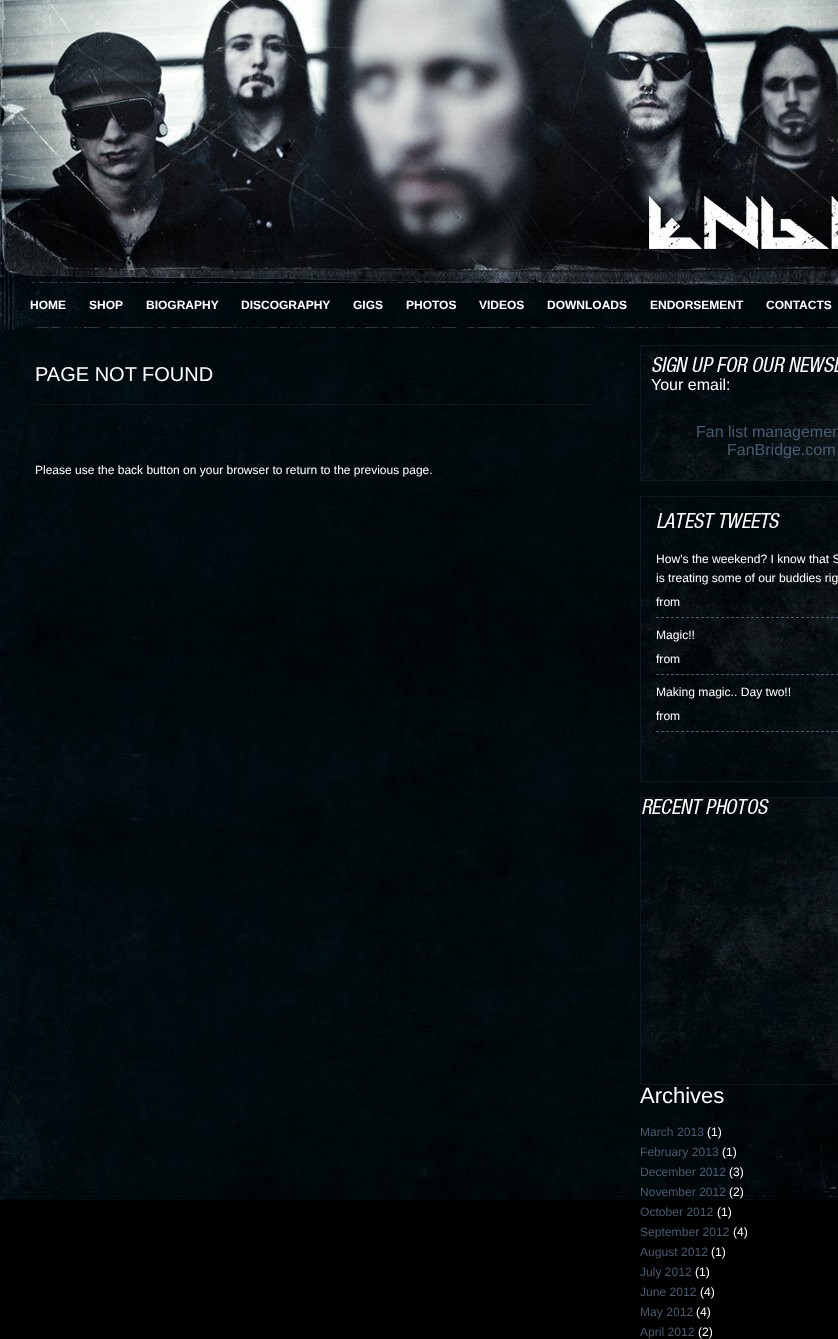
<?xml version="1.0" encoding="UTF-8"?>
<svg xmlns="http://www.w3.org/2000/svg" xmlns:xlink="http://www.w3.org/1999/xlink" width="838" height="1339">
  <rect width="100%" height="100%" fill="#000000" />
  <image x="0" y="330" width="838" height="870" xlink:href="image1.png" />
  <image x="0" y="0" width="838" height="290" xlink:href="image2.png" />
  <image x="0" y="290" width="838" height="40" xlink:href="image3.png" />
  <rect x="35" y="404" width="560" height="1" fill="#10171e" />
  <image x="641" y="346" width="197" height="134" xlink:href="image4.png" />
  <rect x="640.5" y="345.5" width="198" height="135" fill="none" stroke="#10171e" />
  <image x="652" y="357" width="186" height="15" xlink:href="image5.png" />
  <image x="641" y="497" width="197" height="284" xlink:href="image6.png" />
  <rect x="640.5" y="496.5" width="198" height="285" fill="none" stroke="#10171e" />
  <image x="657" y="513" width="123" height="15" xlink:href="image7.png" />
  <path d="M 656 617.5 h 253" fill="none" stroke="#485c70" stroke-dasharray="3 2" />
  <path d="M 656 674.5 h 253" fill="none" stroke="#485c70" stroke-dasharray="3 2" />
  <path d="M 656 731.5 h 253" fill="none" stroke="#485c70" stroke-dasharray="3 2" />
  <image x="641" y="798" width="197" height="286" xlink:href="image8.png" />
  <rect x="640.5" y="797.5" width="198" height="287" fill="none" stroke="#10171e" />
  <image x="642" y="799" width="127" height="15" xlink:href="image9.png" />
  <text x="30" y="309" style="font-family: Liberation Sans; font-size: 12px; font-weight: bold; fill: #ffffff">HOME</text>
  <text x="89" y="309" style="font-family: Liberation Sans; font-size: 12px; font-weight: bold; fill: #ffffff">SHOP</text>
  <text x="146" y="309" style="font-family: Liberation Sans; font-size: 12px; font-weight: bold; fill: #ffffff">BIOGRAPHY</text>
  <text x="241" y="309" style="font-family: Liberation Sans; font-size: 12px; font-weight: bold; fill: #ffffff">DISCOGRAPHY</text>
  <text x="353" y="309" style="font-family: Liberation Sans; font-size: 12px; font-weight: bold; fill: #ffffff">GIGS</text>
  <text x="406" y="309" style="font-family: Liberation Sans; font-size: 12px; font-weight: bold; fill: #ffffff">PHOTOS</text>
  <text x="479" y="309" style="font-family: Liberation Sans; font-size: 12px; font-weight: bold; fill: #ffffff">VIDEOS</text>
  <text x="547" y="309" style="font-family: Liberation Sans; font-size: 12px; font-weight: bold; fill: #ffffff">DOWNLOADS</text>
  <text x="650" y="309" style="font-family: Liberation Sans; font-size: 12px; font-weight: bold; fill: #ffffff">ENDORSEMENT</text>
  <text x="766" y="309" style="font-family: Liberation Sans; font-size: 12px; font-weight: bold; fill: #ffffff">CONTACTS</text>
  <text x="35" y="381" style="font-family: Liberation Sans; font-size: 20px; fill: #ffffff">PAGE NOT FOUND</text>
  <text x="35" y="474" style="font-family: Liberation Sans; font-size: 12px; fill: #ffffff">Please use the back button on your browser to return to the previous page.</text>
  <text x="651" y="390" style="font-family: Liberation Sans; font-size: 16px; fill: #ffffff">Your email:</text>
  <text x="696" y="437" style="font-family: Liberation Sans; font-size: 16px; fill: #485c70">Fan list managemen</text>
  <text x="727" y="455" style="font-family: Liberation Sans; font-size: 16px; fill: #485c70">FanBridge.com</text>
  <text x="656" y="563" style="font-family: Liberation Sans; font-size: 12.1px; fill: #ffffff">How's the weekend? I know that S</text>
  <text x="656" y="582" style="font-family: Liberation Sans; font-size: 12.1px; fill: #ffffff">is treating some of our buddies rig</text>
  <text x="656" y="606" style="font-family: Liberation Sans; font-size: 12.1px; fill: #ffffff">from</text>
  <text x="656" y="639" style="font-family: Liberation Sans; font-size: 12.1px; fill: #ffffff">Magic!!</text>
  <text x="656" y="663" style="font-family: Liberation Sans; font-size: 12.1px; fill: #ffffff">from</text>
  <text x="656" y="696" style="font-family: Liberation Sans; font-size: 12.1px; fill: #ffffff">Making magic.. Day two!!</text>
  <text x="656" y="720" style="font-family: Liberation Sans; font-size: 12.1px; fill: #ffffff">from</text>
  <text x="640" y="1103" style="font-family: Liberation Sans; font-size: 22px; fill: #ffffff">Archives</text>
  <text x="640" y="1136" style="font-family: Liberation Sans; font-size: 12.1px; fill: #485c70">March 2013</text>
  <text x="707" y="1136" style="font-family: Liberation Sans; font-size: 12.1px; fill: #ffffff">(1)</text>
  <text x="640" y="1156" style="font-family: Liberation Sans; font-size: 12.1px; fill: #485c70">February 2013</text>
  <text x="722" y="1156" style="font-family: Liberation Sans; font-size: 12.1px; fill: #ffffff">(1)</text>
  <text x="640" y="1176" style="font-family: Liberation Sans; font-size: 12.1px; fill: #485c70">December 2012</text>
  <text x="729" y="1176" style="font-family: Liberation Sans; font-size: 12.1px; fill: #ffffff">(3)</text>
  <text x="640" y="1196" style="font-family: Liberation Sans; font-size: 12.1px; fill: #485c70">November 2012</text>
  <text x="729" y="1196" style="font-family: Liberation Sans; font-size: 12.1px; fill: #ffffff">(2)</text>
  <text x="640" y="1216" style="font-family: Liberation Sans; font-size: 12.1px; fill: #485c70">October 2012</text>
  <text x="717" y="1216" style="font-family: Liberation Sans; font-size: 12.1px; fill: #ffffff">(1)</text>
  <text x="640" y="1236" style="font-family: Liberation Sans; font-size: 12.1px; fill: #485c70">September 2012</text>
  <text x="733" y="1236" style="font-family: Liberation Sans; font-size: 12.1px; fill: #ffffff">(4)</text>
  <text x="640" y="1256" style="font-family: Liberation Sans; font-size: 12.1px; fill: #485c70">August 2012</text>
  <text x="711" y="1256" style="font-family: Liberation Sans; font-size: 12.1px; fill: #ffffff">(1)</text>
  <text x="640" y="1276" style="font-family: Liberation Sans; font-size: 12.1px; fill: #485c70">July 2012</text>
  <text x="695" y="1276" style="font-family: Liberation Sans; font-size: 12.1px; fill: #ffffff">(1)</text>
  <text x="640" y="1296" style="font-family: Liberation Sans; font-size: 12.1px; fill: #485c70">June 2012</text>
  <text x="700" y="1296" style="font-family: Liberation Sans; font-size: 12.1px; fill: #ffffff">(4)</text>
  <text x="640" y="1316" style="font-family: Liberation Sans; font-size: 12.1px; fill: #485c70">May 2012</text>
  <text x="696" y="1316" style="font-family: Liberation Sans; font-size: 12.1px; fill: #ffffff">(4)</text>
  <text x="640" y="1336" style="font-family: Liberation Sans; font-size: 12.1px; fill: #485c70">April 2012</text>
  <text x="698" y="1336" style="font-family: Liberation Sans; font-size: 12.1px; fill: #ffffff">(2)</text>
</svg>
